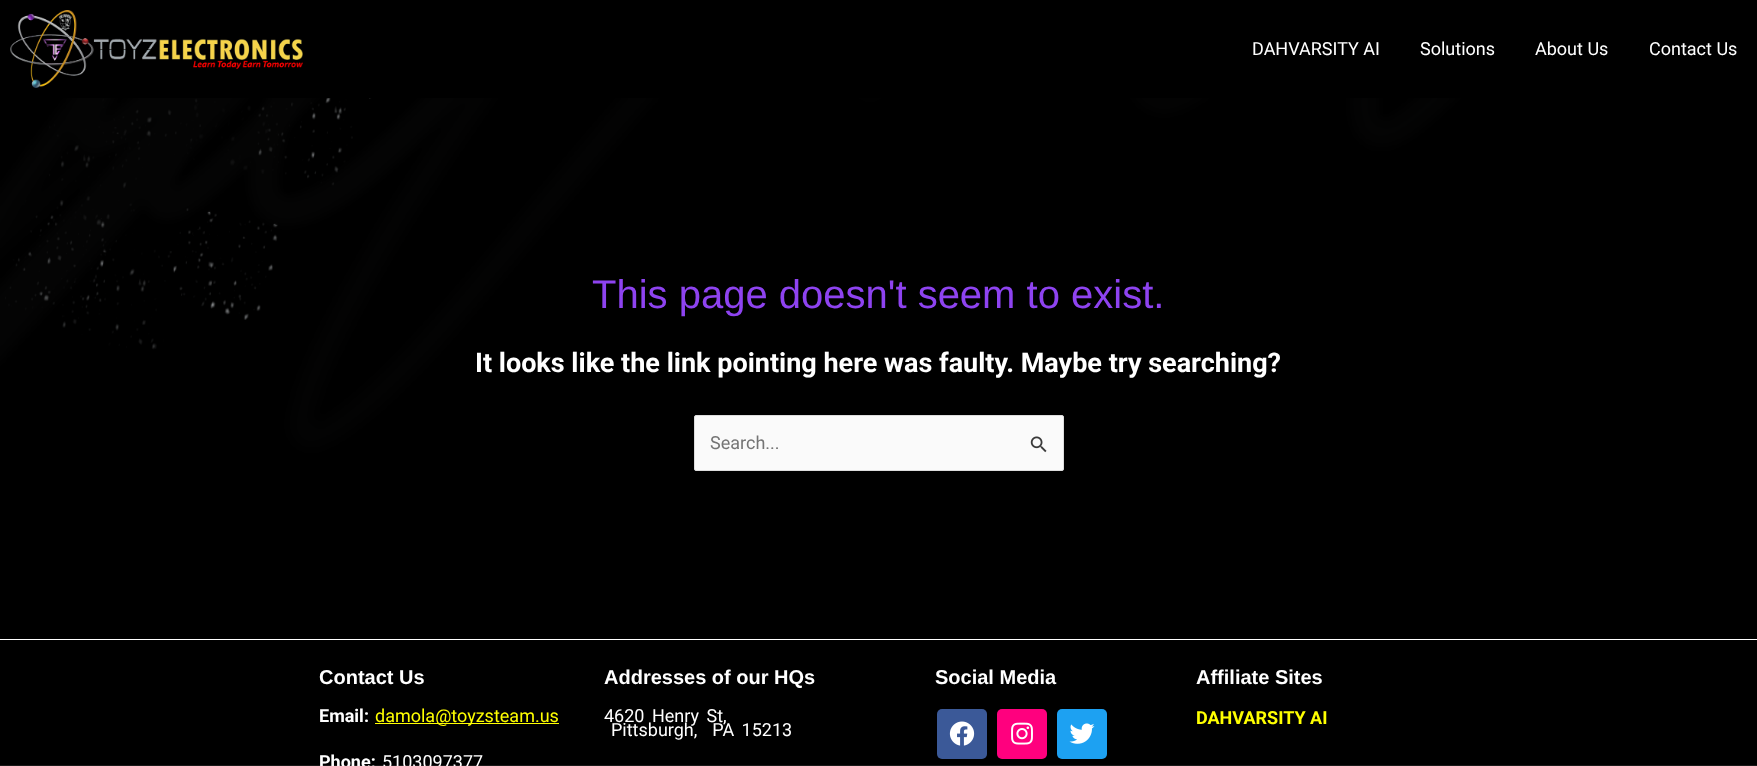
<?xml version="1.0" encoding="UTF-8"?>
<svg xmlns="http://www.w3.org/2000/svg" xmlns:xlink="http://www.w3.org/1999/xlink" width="1757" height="766">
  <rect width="100%" height="100%" fill="#ffffff" />
  <image x="0" y="98" width="1757" height="668" xlink:href="image1.png" />
  <rect width="1757" height="98" fill="#000000" />
  <image x="10" y="10" width="293" height="78" xlink:href="image2.png" />
  <rect x="694.5" y="415.5" width="369" height="55" rx="1.5" fill="#fafafa" stroke="#dddddd" />
  <image x="1030" y="436" width="17" height="17" xlink:href="image3.png" />
  <rect y="639" width="1757" height="1" fill="#ffffff" />
  <rect x="375" y="723" width="184" height="1" fill="#ffff00" />
  <rect x="937" y="709" width="50" height="50" rx="5" fill="#3b5998" />
  <image x="949" y="721" width="26" height="25" xlink:href="image4.png" />
  <rect x="997" y="709" width="50" height="50" rx="5" fill="#ff007e" />
  <image x="1011" y="722" width="22" height="23" xlink:href="image5.png" />
  <rect x="1057" y="709" width="50" height="50" rx="5" fill="#1da1f2" />
  <image x="1069" y="723" width="26" height="21" xlink:href="image6.png" />
  <text x="1252" y="55" style="font-family: Roboto; font-size: 18px; fill: #ffffff">DAHVARSITY AI</text>
  <text x="1420" y="55" style="font-family: Roboto; font-size: 18px; fill: #ffffff">Solutions</text>
  <text x="1535" y="55" style="font-family: Roboto; font-size: 18px; fill: #ffffff">About Us</text>
  <text x="1649" y="55" style="font-family: Roboto; font-size: 18px; fill: #ffffff">Contact Us</text>
  <text x="592" y="308" style="font-family: Liberation Sans; font-size: 40px; fill: #8e43f0">This page doesn't seem to exist.</text>
  <text x="475" y="372" style="font-family: Roboto; font-size: 27px; font-weight: bold; fill: #ffffff">It looks like the link pointing here was faulty. Maybe try searching?</text>
  <text x="710" y="449" style="font-family: Roboto; font-size: 18px; fill: #757575">Search...</text>
  <text x="319" y="684" style="font-family: Liberation Sans; font-size: 20px; font-weight: bold; fill: #ffffff">Contact Us</text>
  <text x="319" y="722" style="font-family: Roboto; font-size: 18px; font-weight: bold; fill: #ffffff">Email:</text>
  <text x="375" y="722" style="font-family: Roboto; font-size: 18px; fill: #ffff00">damola@toyzsteam.us</text>
  <text x="319" y="768" style="font-family: Roboto; font-size: 18px; font-weight: bold; fill: #ffffff">Phone:</text>
  <text x="382" y="768" style="font-family: Roboto; font-size: 18px; fill: #ffffff">5103097377</text>
  <text x="604" y="684" style="font-family: Liberation Sans; font-size: 20px; font-weight: bold; fill: #ffffff">Addresses of our HQs</text>
  <text x="604" y="722" word-spacing="3" style="font-family: Roboto; font-size: 18px; fill: #ffffff">4620 Henry St,</text>
  <text x="611" y="736" word-spacing="3" style="font-family: Roboto; font-size: 18px; fill: #ffffff" xml:space="preserve">Pittsburgh,  PA 15213</text>
  <text x="935" y="684" style="font-family: Liberation Sans; font-size: 20px; font-weight: bold; fill: #ffffff">Social Media</text>
  <text x="1196" y="684" style="font-family: Liberation Sans; font-size: 20px; font-weight: bold; fill: #ffffff">Affiliate Sites</text>
  <text x="1196" y="724" style="font-family: Roboto; font-size: 18px; font-weight: bold; fill: #ffff00">DAHVARSITY AI</text>
</svg>
